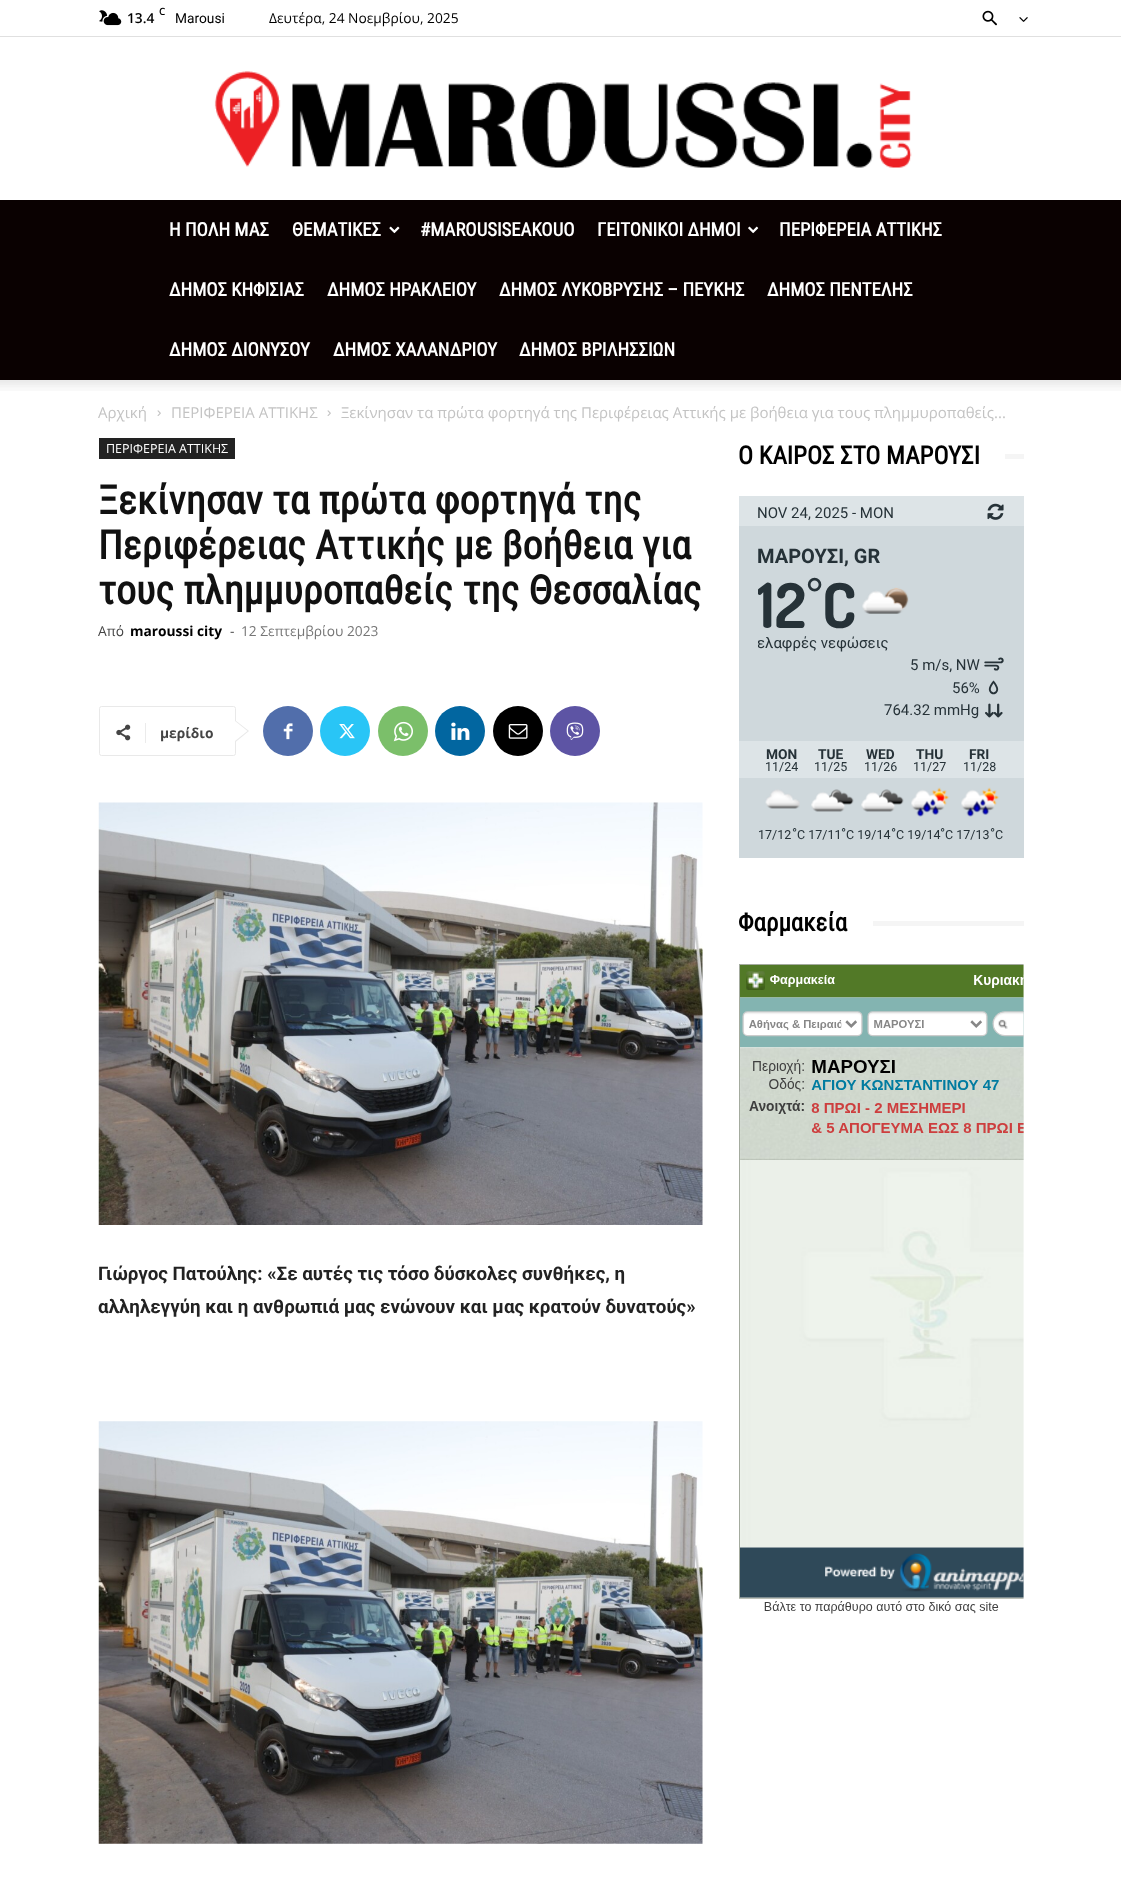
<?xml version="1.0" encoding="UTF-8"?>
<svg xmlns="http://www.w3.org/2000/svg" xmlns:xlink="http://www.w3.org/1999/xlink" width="1121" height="1888">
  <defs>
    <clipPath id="clip1"><rect x="758" y="573" width="157" height="62" /></clipPath>
    <clipPath id="clip2"><rect x="758" y="566" width="247" height="158" /></clipPath>
  </defs>
  <rect width="100%" height="100%" fill="#ffffff" />
  <rect y="36" width="1121" height="1" fill="#e0e0e0" />
  <image x="99" y="10" width="23" height="16" xlink:href="image1.png" />
  <image x="982" y="10" width="15" height="16" xlink:href="image2.png" />
  <image x="1019" y="17" width="9" height="5" xlink:href="image3.png" />
  <image x="214" y="71" width="698" height="97" xlink:href="image4.png" />
  <rect y="200" width="1121" height="180" fill="#0a0101" />
  <image x="389" y="226" width="11" height="8" xlink:href="image5.png" />
  <image x="748" y="226" width="11" height="8" xlink:href="image6.png" />
  <image x="0" y="380" width="1121" height="11" xlink:href="image7.png" />
  <image x="157" y="410" width="4" height="6" xlink:href="image8.png" />
  <image x="327" y="410" width="4" height="6" xlink:href="image8.png" />
  <rect x="99" y="438" width="136" height="21" fill="#222222" />
  <rect x="99.5" y="706.5" width="136" height="49" rx="2" fill="none" stroke="#e9e9e9" />
  <path d="M 235 742.5 v -22.5 l 14 11 z" fill="#e9e9e9" />
  <image x="116" y="724" width="15" height="17" xlink:href="image9.png" />
  <rect x="145" y="723" width="1" height="20" fill="#ebebeb" />
  <path d="M 235 741 v -20 l 12.5 10 z" fill="#ffffff" />
  <circle cx="288" cy="731" r="25" fill="#516eab" />
  <image x="283" y="723" width="10" height="17" xlink:href="image10.png" />
  <circle cx="345" cy="731" r="25" fill="#29c5f6" />
  <image x="339" y="724" width="16" height="15" xlink:href="image11.png" />
  <circle cx="403" cy="731" r="25" fill="#7bbf6a" />
  <image x="393" y="721" width="20" height="21" xlink:href="image12.png" />
  <circle cx="460" cy="731" r="25" fill="#0266a0" />
  <image x="451" y="722" width="19" height="18" xlink:href="image13.png" />
  <circle cx="518" cy="731" r="25" fill="#000000" />
  <image x="508" y="724" width="20" height="15" xlink:href="image14.png" />
  <circle cx="575" cy="731" r="25" fill="#5d54a4" />
  <image x="566" y="722" width="18" height="18" xlink:href="image15.png" />
  <image x="98" y="802" width="605" height="423" xlink:href="image16.png" />
  <image x="98" y="1421" width="605" height="423" xlink:href="image17.png" />
  <rect x="1005" y="454" width="19" height="5" fill="#f5f5f5" />
  <rect x="739" y="526" width="285" height="332" fill="#cfd8dc" />
  <rect x="739" y="496" width="285" height="30" fill="#dde4e7" />
  <image x="987" y="503" width="17" height="17" xlink:href="image18.png" />
  <image x="862" y="587" width="47" height="27" xlink:href="image19.png" />
  <image x="985" y="703" width="9" height="15" xlink:href="image20.png" />
  <image x="993" y="703" width="10" height="15" xlink:href="image21.png" />
  <rect x="739" y="741" width="285" height="37" fill="#dde4e7" />
  <image x="765" y="789" width="35" height="20" xlink:href="image22.png" />
  <image x="811" y="789" width="43" height="23" xlink:href="image23.png" />
  <image x="861" y="789" width="43" height="23" xlink:href="image23.png" />
  <image x="911" y="787" width="39" height="30" xlink:href="image24.png" />
  <image x="961" y="787" width="39" height="30" xlink:href="image24.png" />
  <rect x="873" y="921" width="151" height="5" fill="#f5f5f5" />
  <image x="739" y="964" width="285" height="650" xlink:href="image25.png" />
  <text x="159" y="15" style="font-family: Open Sans; font-size: 10px; font-weight: 600; fill: #000000">C</text>
  <text x="127" y="23" style="font-family: Open Sans; font-size: 13.75px; font-weight: 600; fill: #000000">13.4</text>
  <text x="175" y="23" style="font-family: 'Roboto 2'; font-size: 13.75px; fill: #000000">Marousi</text>
  <text x="269" y="23" style="font-family: Open Sans; font-size: 13.75px; fill: #000000">Δευτέρα, 24 Νοεμβρίου, 2025</text>
  <text x="169" y="236" style="font-family: Roboto Condensed; font-size: 18.75px; font-weight: bold; fill: #ffffff">Η ΠΟΛΗ ΜΑΣ</text>
  <text x="292" y="236" style="font-family: Roboto Condensed; font-size: 18.75px; font-weight: bold; fill: #ffffff">ΘΕΜΑΤΙΚΕΣ</text>
  <text x="420" y="236" style="font-family: Roboto Condensed; font-size: 18.75px; font-weight: bold; fill: #ffffff">#MAROUSISEAKOUO</text>
  <text x="597" y="236" style="font-family: Roboto Condensed; font-size: 18.75px; font-weight: bold; fill: #ffffff">ΓΕΙΤΟΝΙΚΟΙ ΔΗΜΟΙ</text>
  <text x="779" y="236" style="font-family: Roboto Condensed; font-size: 18.75px; font-weight: bold; fill: #ffffff">ΠΕΡΙΦΕΡΕΙΑ ΑΤΤΙΚΗΣ</text>
  <text x="169" y="296" style="font-family: Roboto Condensed; font-size: 18.75px; font-weight: bold; fill: #ffffff">ΔΗΜΟΣ ΚΗΦΙΣΙΑΣ</text>
  <text x="327" y="296" style="font-family: Roboto Condensed; font-size: 18.75px; font-weight: bold; fill: #ffffff">ΔΗΜΟΣ ΗΡΑΚΛΕΙΟΥ</text>
  <text x="499" y="296" style="font-family: Roboto Condensed; font-size: 18.75px; font-weight: bold; fill: #ffffff">ΔΗΜΟΣ ΛΥΚΟΒΡΥΣΗΣ – ΠΕΥΚΗΣ</text>
  <text x="767" y="296" style="font-family: Roboto Condensed; font-size: 18.75px; font-weight: bold; fill: #ffffff">ΔΗΜΟΣ ΠΕΝΤΕΛΗΣ</text>
  <text x="169" y="356" style="font-family: Roboto Condensed; font-size: 18.75px; font-weight: bold; fill: #ffffff">ΔΗΜΟΣ ΔΙΟΝΥΣΟΥ</text>
  <text x="333" y="356" style="font-family: Roboto Condensed; font-size: 18.75px; font-weight: bold; fill: #ffffff">ΔΗΜΟΣ ΧΑΛΑΝΔΡΙΟΥ</text>
  <text x="519" y="356" style="font-family: Roboto Condensed; font-size: 18.75px; font-weight: bold; fill: #ffffff">ΔΗΜΟΣ ΒΡΙΛΗΣΣΙΩΝ</text>
  <text x="98" y="418" style="font-family: Open Sans; font-size: 15px; fill: #c3c3c3">Αρχική</text>
  <text x="171" y="418" style="font-family: Open Sans; font-size: 15px; fill: #c3c3c3">ΠΕΡΙΦΕΡΕΙΑ ΑΤΤΙΚΗΣ</text>
  <text x="341" y="418" style="font-family: Open Sans; font-size: 15px; fill: #c3c3c3">Ξεκίνησαν τα πρώτα φορτηγά της Περιφέρειας Αττικής με βοήθεια για τους πλημμυροπαθείς...</text>
  <text x="106" y="453" style="font-family: Open Sans; font-size: 12.5px; fill: #ffffff">ΠΕΡΙΦΕΡΕΙΑ ΑΤΤΙΚΗΣ</text>
  <text x="98" y="514" style="font-family: Roboto Condensed; font-size: 40px; font-weight: bold; fill: #111111">Ξεκίνησαν τα πρώτα φορτηγά της</text>
  <text x="98" y="559" style="font-family: Roboto Condensed; font-size: 40px; font-weight: bold; fill: #111111">Περιφέρειας Αττικής με βοήθεια για</text>
  <text x="98" y="604" style="font-family: Roboto Condensed; font-size: 40px; font-weight: bold; fill: #111111">τους πλημμυροπαθείς της Θεσσαλίας</text>
  <text x="98" y="636" style="font-family: Open Sans; font-size: 13.75px; fill: #444444">Από</text>
  <text x="130" y="636" style="font-family: Open Sans; font-size: 13.75px; font-weight: bold; fill: #000000">maroussi city</text>
  <text x="230" y="636" style="font-family: Open Sans; font-size: 13.75px; fill: #444444">-</text>
  <text x="241" y="636" style="font-family: Open Sans; font-size: 13.75px; fill: #767676">12 Σεπτεμβρίου 2023</text>
  <text x="160" y="738" style="font-family: Open Sans; font-size: 13.75px; font-weight: bold; fill: #444444">μερίδιο</text>
  <text x="98" y="1280" style="font-family: Roboto; font-size: 18.75px; font-weight: bold; fill: #222222">Γιώργος Πατούλης: «Σε αυτές τις τόσο δύσκολες συνθήκες, η</text>
  <text x="98" y="1313" style="font-family: Roboto; font-size: 18.75px; font-weight: bold; fill: #222222">αλληλεγγύη και η ανθρωπιά μας ενώνουν και μας κρατούν δυνατούς»</text>
  <text x="738" y="464" style="font-family: Roboto Condensed; font-size: 25px; font-weight: bold; fill: #000000">Ο ΚΑΙΡΟΣ ΣΤΟ ΜΑΡΟΥΣΙ</text>
  <text x="757" y="518" style="font-family: Roboto; font-size: 15px; fill: #263238">NOV 24, 2025 - MON</text>
  <text x="757" y="563" style="font-family: 'Roboto 2'; font-size: 20px; font-weight: bold; fill: #263238">ΜΑΡΟΥΣΙ, GR</text>
  <g clip-path="url(#clip1)">
    <text x="757" y="628" style="font-family: Dosis; font-size: 62px; font-weight: bold; fill: #263238">12</text>
  </g>
  <text x="807" y="607" style="font-family: Dosis; font-size: 38px; font-weight: bold; fill: #263238">°</text>
  <text x="822" y="628" style="font-family: Dosis; font-size: 62px; font-weight: bold; fill: #263238">C</text>
  <g clip-path="url(#clip2)">
    <text x="757" y="648" style="font-family: Roboto; font-size: 15px; fill: #263238">ελαφρές νεφώσεις</text>
  </g>
  <text x="910" y="670" style="font-family: Roboto; font-size: 15px; fill: #263238">5 m/s, NW</text>
  <text x="983" y="675" style="font-family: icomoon; font-size: 22px; fill: #263238">|</text>
  <text x="952" y="693" style="font-family: Roboto; font-size: 15px; fill: #263238">56%</text>
  <text x="983" y="698" style="font-family: icomoon; font-size: 21px; fill: #263238">-</text>
  <text x="884" y="715" style="font-family: Roboto; font-size: 15px; fill: #263238">764.32 mmHg</text>
  <text x="766" y="759" style="font-family: 'Roboto 2'; font-size: 13.75px; font-weight: bold; fill: #263238">MON</text>
  <text x="765" y="771" style="font-family: Roboto; font-size: 12.5px; fill: #263238">11/24</text>
  <text x="818" y="759" style="font-family: 'Roboto 2'; font-size: 13.75px; font-weight: bold; fill: #263238">TUE</text>
  <text x="814" y="771" style="font-family: Roboto; font-size: 12.5px; fill: #263238">11/25</text>
  <text x="866" y="759" style="font-family: 'Roboto 2'; font-size: 13.75px; font-weight: bold; fill: #263238">WED</text>
  <text x="864" y="771" style="font-family: Roboto; font-size: 12.5px; fill: #263238">11/26</text>
  <text x="916" y="759" style="font-family: 'Roboto 2'; font-size: 13.75px; font-weight: bold; fill: #263238">THU</text>
  <text x="913" y="771" style="font-family: Roboto; font-size: 12.5px; fill: #263238">11/27</text>
  <text x="969" y="759" style="font-family: 'Roboto 2'; font-size: 13.75px; font-weight: bold; fill: #263238">FRI</text>
  <text x="963" y="771" style="font-family: Roboto; font-size: 12.5px; fill: #263238">11/28</text>
  <text x="758" y="839" style="font-family: Roboto; font-size: 12.5px; fill: #263238">17/12</text>
  <text x="792" y="838" style="font-family: Roboto; font-size: 13.75px; fill: #263238">°</text>
  <text x="797" y="839" style="font-family: Roboto; font-size: 12.5px; fill: #263238">C 17/11</text>
  <text x="841" y="838" style="font-family: Roboto; font-size: 13.75px; fill: #263238">°</text>
  <text x="846" y="839" style="font-family: Roboto; font-size: 12.5px; fill: #263238">C 19/14</text>
  <text x="891" y="838" style="font-family: Roboto; font-size: 13.75px; fill: #263238">°</text>
  <text x="896" y="839" style="font-family: Roboto; font-size: 12.5px; fill: #263238">C 19/14</text>
  <text x="940" y="838" style="font-family: Roboto; font-size: 13.75px; fill: #263238">°</text>
  <text x="945" y="839" style="font-family: Roboto; font-size: 12.5px; fill: #263238">C 17/13</text>
  <text x="990" y="838" style="font-family: Roboto; font-size: 13.75px; fill: #263238">°</text>
  <text x="995" y="839" style="font-family: Roboto; font-size: 12.5px; fill: #263238">C</text>
  <text x="738" y="931" style="font-family: Roboto Condensed; font-size: 25px; font-weight: bold; fill: #000000">Φαρμακεία</text>
</svg>
